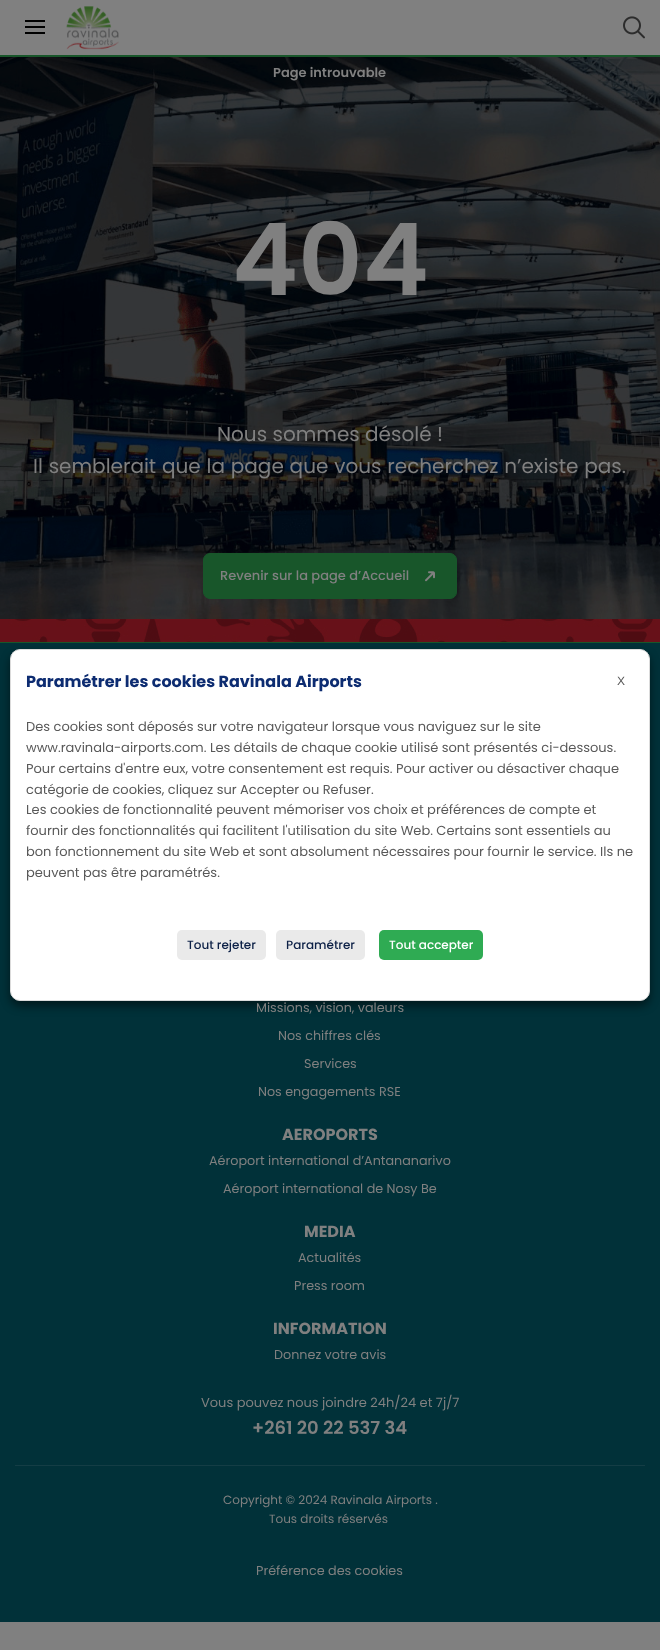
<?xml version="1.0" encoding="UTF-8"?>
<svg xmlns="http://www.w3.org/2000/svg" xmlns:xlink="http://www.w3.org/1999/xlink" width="660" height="1650">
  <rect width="100%" height="100%" fill="#808080" />
  <rect y="55" width="660" height="2" fill="#18562a" />
  <rect x="25" y="20" width="20" height="2" fill="#000000" />
  <rect x="25" y="26" width="20" height="2" fill="#000000" />
  <rect x="25" y="32" width="20" height="2" fill="#000000" />
  <image x="66" y="6" width="53" height="44" xlink:href="image1.png" />
  <image x="623" y="16" width="22" height="23" xlink:href="image2.png" />
  <image x="0" y="57" width="660" height="562" xlink:href="image3.png" />
  <rect x="203.5" y="553.5" width="253" height="45" rx="6.5" fill="#18562a" stroke="#18562a" />
  <image x="425" y="571" width="10" height="11" xlink:href="image4.png" />
  <image x="0" y="619" width="660" height="23" xlink:href="image5.png" />
  <rect y="643" width="660" height="979" fill="#013139" />
  <rect y="642" width="660" height="1" fill="#18562a" />
  <rect x="10" y="654" width="640" height="352" rx="10" fill="#000000" fill-opacity="0.5" filter="blur(5px)" />
  <rect x="10.5" y="649.5" width="639" height="351" rx="9.5" fill="#ffffff" stroke="#dbdbdb" />
  <rect x="177" y="930" width="89" height="30" rx="5" fill="#eaeaea" />
  <rect x="276" y="930" width="89" height="30" rx="5" fill="#eaeaea" />
  <rect x="379" y="930" width="104" height="30" rx="5" fill="#2fab53" />
  <rect x="15" y="1465" width="630" height="1" fill="#143d45" />
  <text x="273" y="77" style="font-family: Poppins; font-size: 13px; font-weight: 600; fill: #808080">Page introuvable</text>
  <text x="232" y="295" style="font-family: Poppins; font-size: 100px; font-weight: 600; fill: #808080">404</text>
  <text x="217" y="441" style="font-family: Poppins; font-size: 20px; fill: #808080">Nous sommes désolé !</text>
  <text x="33" y="473" word-spacing="0.5" style="font-family: Poppins; font-size: 20px; fill: #808080">Il semblerait que la page que vous recherchez n’existe pas.</text>
  <text x="220" y="580" style="font-family: Poppins; font-size: 13px; font-weight: 500; fill: #808080">Revenir sur la page d’Accueil</text>
  <text x="26" y="687" style="font-family: Poppins; font-size: 16px; font-weight: bold; fill: #0d2c71">Paramétrer les cookies Ravinala Airports</text>
  <text x="617" y="685" style="font-family: Liberation Sans; font-size: 12px; fill: #595959">X</text>
  <text x="26" y="731" style="font-family: Poppins; font-size: 13px; fill: #595959">Des cookies sont déposés sur votre navigateur lorsque vous naviguez sur le site</text>
  <text x="26" y="752" style="font-family: Poppins; font-size: 13px; fill: #595959">www.ravinala-airports.com. Les détails de chaque cookie utilisé sont présentés ci-dessous.</text>
  <text x="26" y="773" style="font-family: Poppins; font-size: 13px; fill: #595959">Pour certains d'entre eux, votre consentement est requis. Pour activer ou désactiver chaque</text>
  <text x="26" y="794" style="font-family: Poppins; font-size: 13px; fill: #595959">catégorie de cookies, cliquez sur Accepter ou Refuser.</text>
  <text x="26" y="814" style="font-family: Poppins; font-size: 13px; fill: #595959">Les cookies de fonctionnalité peuvent mémoriser vos choix et préférences de compte et</text>
  <text x="26" y="835" style="font-family: Poppins; font-size: 13px; fill: #595959">fournir des fonctionnalités qui facilitent l'utilisation du site Web. Certains sont essentiels au</text>
  <text x="26" y="856" style="font-family: Poppins; font-size: 13px; fill: #595959">bon fonctionnement du site Web et sont absolument nécessaires pour fournir le service. Ils ne</text>
  <text x="26" y="877" style="font-family: Poppins; font-size: 13px; fill: #595959">peuvent pas être paramétrés.</text>
  <text x="187" y="949" style="font-family: Poppins; font-size: 12px; font-weight: 500; fill: #0d2147">Tout rejeter</text>
  <text x="286" y="949" style="font-family: Poppins; font-size: 12px; font-weight: 500; fill: #0d2147">Paramétrer</text>
  <text x="389" y="949" style="font-family: Poppins; font-size: 12px; font-weight: 500; fill: #ffffff">Tout accepter</text>
  <text x="256" y="1012" style="font-family: Poppins; font-size: 12.75px; fill: #808080">Missions, vision, valeurs</text>
  <text x="278" y="1040" style="font-family: Poppins; font-size: 12.75px; fill: #808080">Nos chiffres clés</text>
  <text x="304" y="1068" style="font-family: Poppins; font-size: 12.75px; fill: #808080">Services</text>
  <text x="258" y="1096" style="font-family: Poppins; font-size: 12.75px; fill: #808080">Nos engagements RSE</text>
  <text x="282" y="1140" style="font-family: Poppins; font-size: 16px; font-weight: bold; fill: #808080">AEROPORTS</text>
  <text x="209" y="1165" style="font-family: Poppins; font-size: 12.75px; fill: #808080">Aéroport international d’Antananarivo</text>
  <text x="223" y="1193" style="font-family: Poppins; font-size: 12.75px; fill: #808080">Aéroport international de Nosy Be</text>
  <text x="304" y="1237" style="font-family: Poppins; font-size: 16px; font-weight: bold; fill: #808080">MEDIA</text>
  <text x="298" y="1262" style="font-family: Poppins; font-size: 12.75px; fill: #808080">Actualités</text>
  <text x="294" y="1290" style="font-family: Poppins; font-size: 12.75px; fill: #808080">Press room</text>
  <text x="273" y="1334" style="font-family: Poppins; font-size: 16px; font-weight: bold; fill: #808080">INFORMATION</text>
  <text x="274" y="1359" style="font-family: Poppins; font-size: 12.75px; fill: #808080">Donnez votre avis</text>
  <text x="201" y="1407" style="font-family: Poppins; font-size: 13px; fill: #808080">Vous pouvez nous joindre 24h/24 et 7j/7</text>
  <text x="252" y="1434" style="font-family: Poppins; font-size: 18px; font-weight: 600; fill: #808080">+261 20 22 537 34</text>
  <text x="223" y="1504" style="font-family: Poppins; font-size: 12px; fill: #808080">Copyright © 2024 Ravinala Airports .</text>
  <text x="269" y="1523" style="font-family: Poppins; font-size: 12px; fill: #808080">Tous droits réservés</text>
  <text x="256" y="1575" style="font-family: Poppins; font-size: 12.75px; fill: #808080">Préférence des cookies</text>
</svg>
